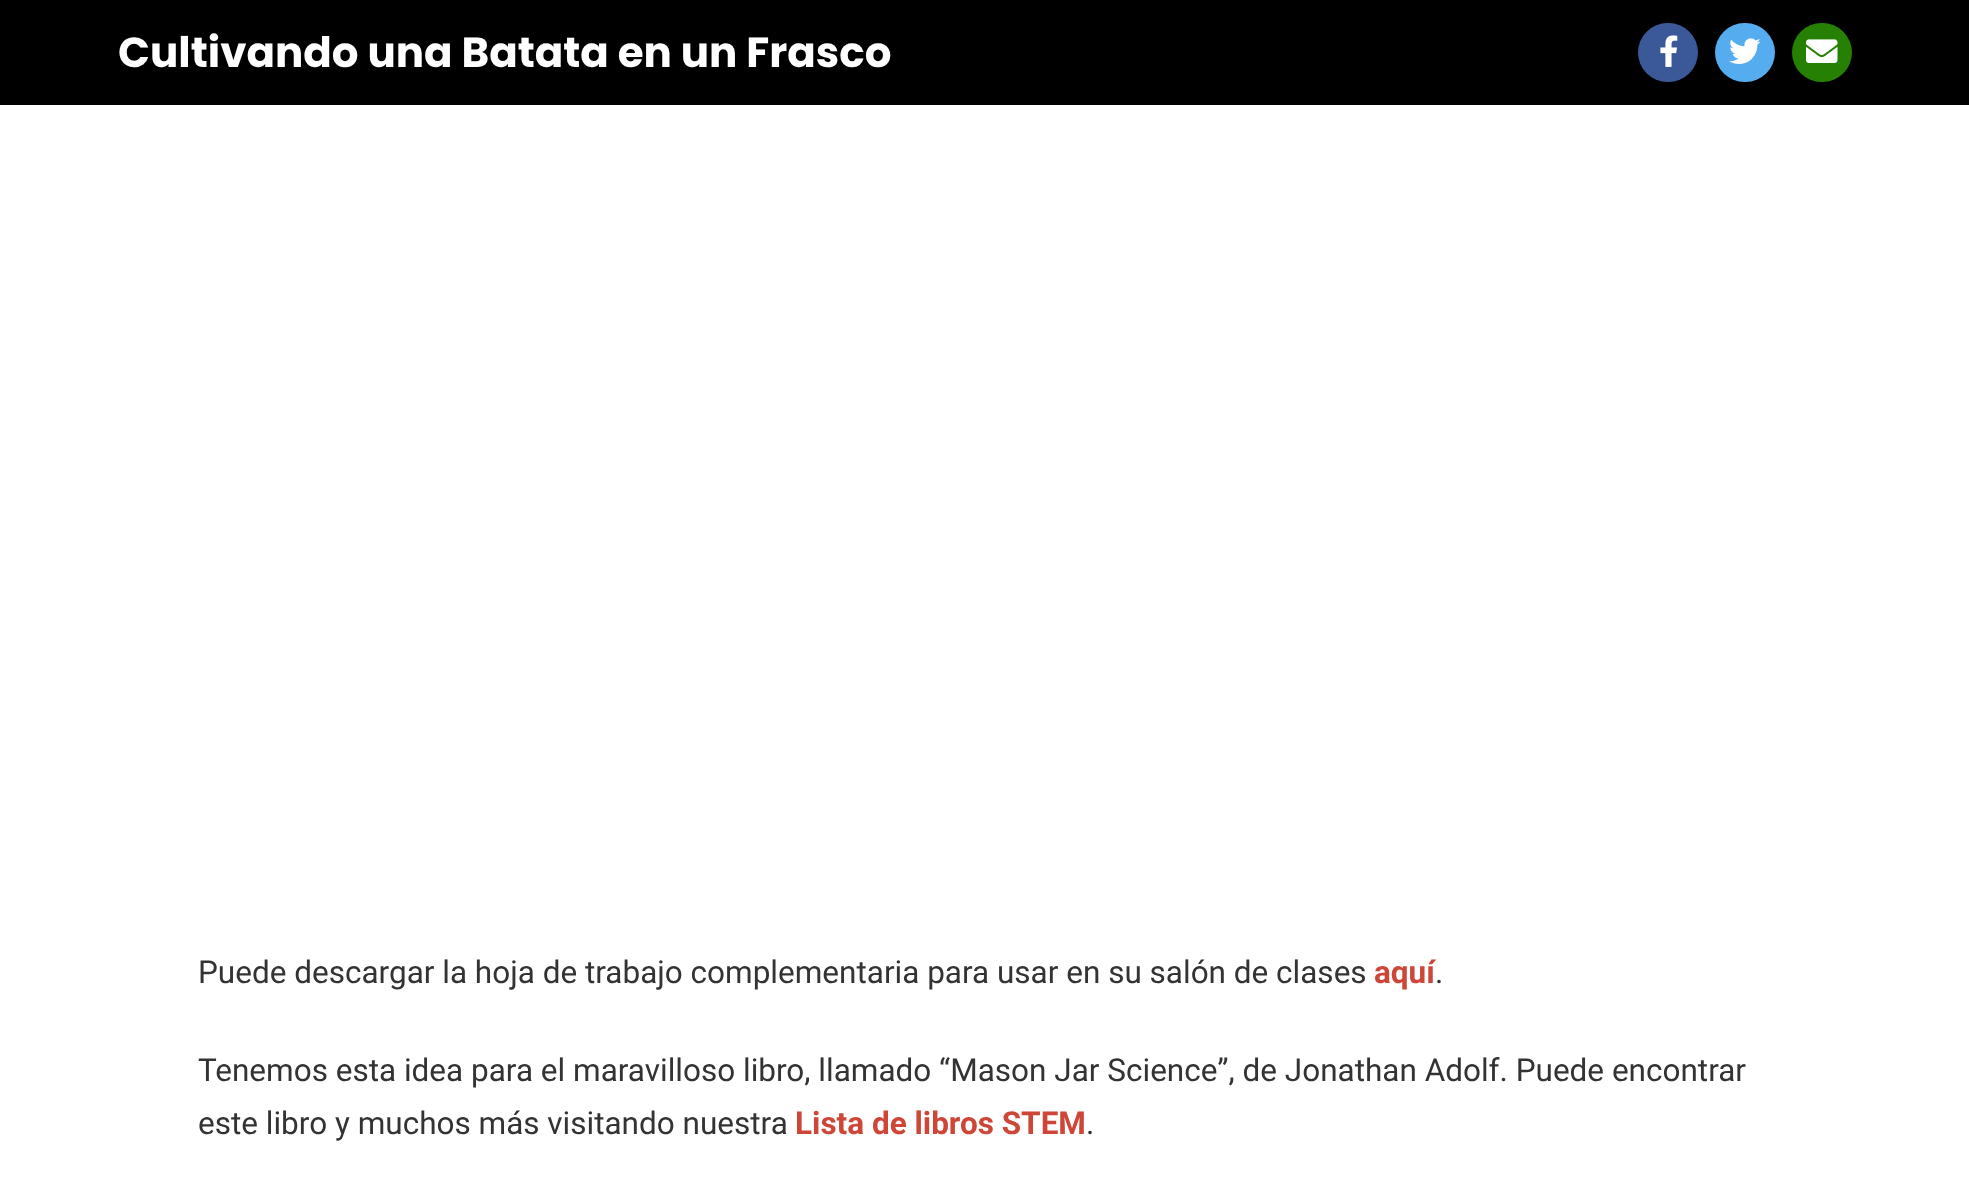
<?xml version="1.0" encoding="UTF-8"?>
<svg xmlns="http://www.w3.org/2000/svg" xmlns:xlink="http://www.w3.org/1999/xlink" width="1969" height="1203">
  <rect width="100%" height="100%" fill="#ffffff" />
  <rect width="1969" height="105" fill="#000000" />
  <rect x="1638" y="23" width="60" height="59" rx="29.5" fill="#3b5999" />
  <image x="1660" y="35" width="18" height="32" xlink:href="image1.png" />
  <rect x="1715" y="23" width="60" height="59" rx="29.5" fill="#55acee" />
  <image x="1729" y="38" width="32" height="26" xlink:href="image2.png" />
  <rect x="1792" y="23" width="60" height="59" rx="29.5" fill="#258004" />
  <image x="1806" y="39" width="32" height="24" xlink:href="image3.png" />
  <text x="118" y="67" style="font-family: Poppins; font-size: 42px; font-weight: bold; fill: #ffffff">Cultivando una Batata en un Frasco</text>
  <text x="198" y="983" style="font-family: Roboto; font-size: 31.5px; fill: #333333">Puede descargar la hoja de trabajo complementaria para usar en su salón de clases</text>
  <text x="1374" y="983" style="font-family: Roboto; font-size: 31.5px; font-weight: bold; fill: #cd4637">aquí</text>
  <text x="1435" y="983" style="font-family: Roboto; font-size: 31.5px; fill: #333333">.</text>
  <text x="198" y="1081" style="font-family: Roboto; font-size: 31.5px; fill: #333333">Tenemos esta idea para el maravilloso libro, llamado “Mason Jar Science”, de Jonathan Adolf. Puede encontrar</text>
  <text x="198" y="1134" style="font-family: Roboto; font-size: 31.5px; fill: #333333">este libro y muchos más visitando nuestra</text>
  <text x="795" y="1134" style="font-family: Roboto; font-size: 31.5px; font-weight: bold; fill: #cd4637">Lista de libros STEM</text>
  <text x="1086" y="1134" style="font-family: Roboto; font-size: 31.5px; fill: #333333">.</text>
</svg>
